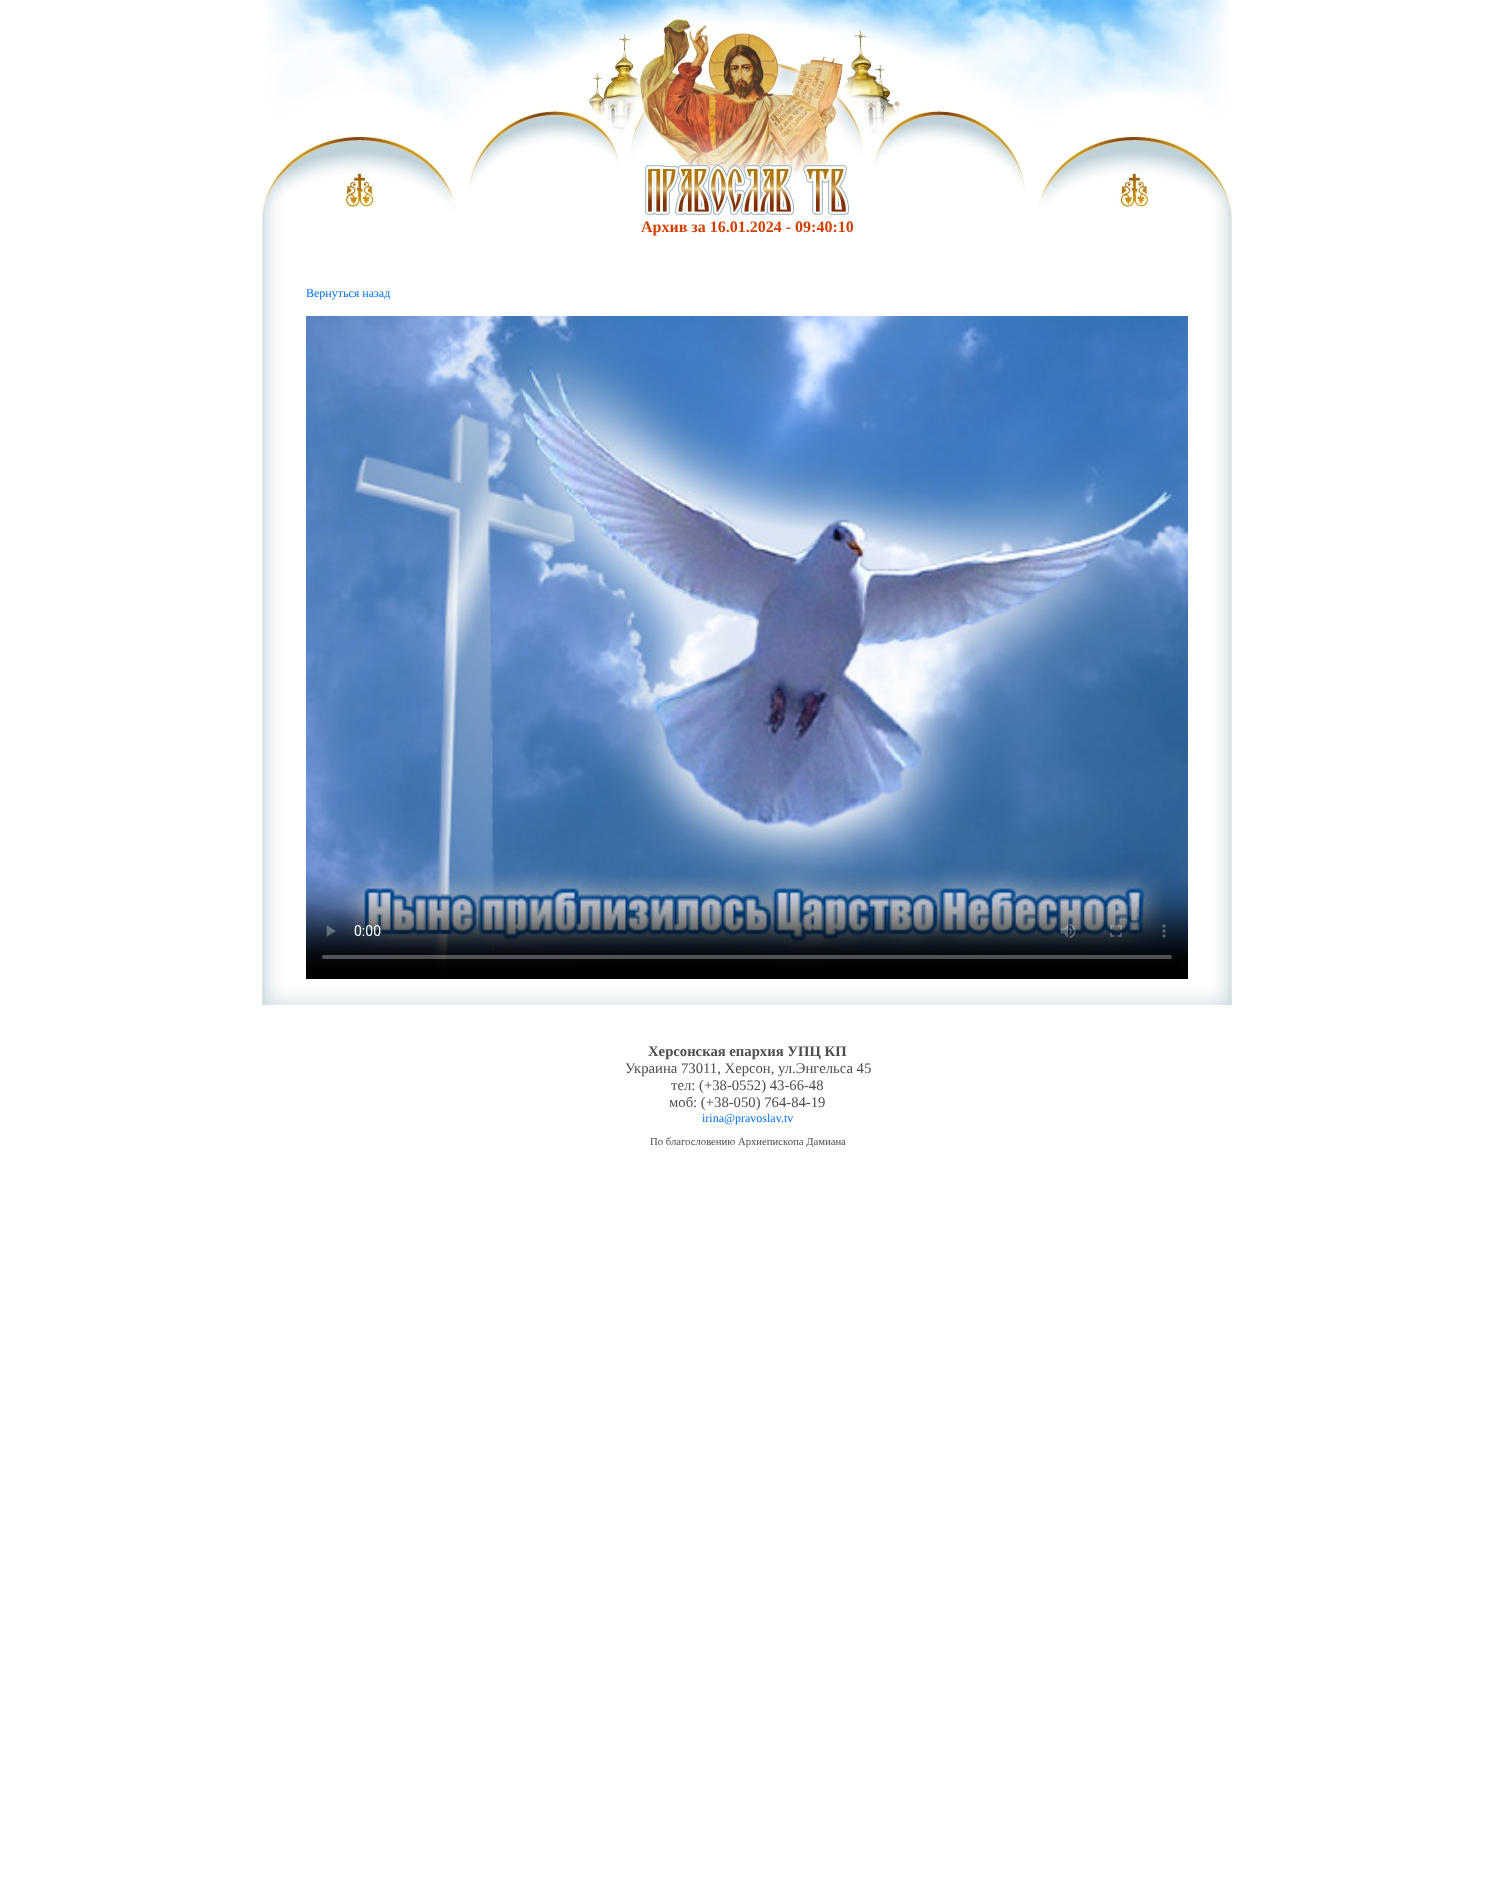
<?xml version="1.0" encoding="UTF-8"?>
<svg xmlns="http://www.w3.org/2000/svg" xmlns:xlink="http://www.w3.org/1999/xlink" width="1495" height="1903">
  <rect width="100%" height="100%" fill="#ffffff" />
  <image x="262" y="0" width="971" height="218" xlink:href="image1.png" />
  <image x="262" y="218" width="970" height="761" xlink:href="image2.png" />
  <image x="306" y="316" width="882" height="663" xlink:href="image3.png" />
  <image x="262" y="979" width="970" height="26" xlink:href="image4.png" />
  <text x="641" y="232" style="font-family: Liberation Serif; font-size: 16px; font-weight: bold; fill: #d33f00">Архив за 16.01.2024 - 09:40:10</text>
  <text x="306" y="297" style="font-family: Liberation Serif; font-size: 12px; fill: #0070eb">Вернуться назад</text>
  <text x="648" y="1056" style="font-family: Liberation Serif; font-size: 14.7px; font-weight: bold; fill: #4d4d4d">Херсонская епархия УПЦ КП</text>
  <text x="625" y="1073" style="font-family: Liberation Serif; font-size: 14.7px; fill: #4d4d4d">Украина 73011, Херсон, ул.Энгельса 45</text>
  <text x="671" y="1090" style="font-family: Liberation Serif; font-size: 14.7px; fill: #4d4d4d">тел: (+38-0552) 43-66-48</text>
  <text x="669" y="1107" style="font-family: Liberation Serif; font-size: 14.7px; fill: #4d4d4d">моб: (+38-050) 764-84-19</text>
  <text x="702" y="1122" style="font-family: Liberation Serif; font-size: 12px; fill: #0070eb">irina@pravoslav.tv</text>
  <text x="650" y="1145" style="font-family: Liberation Serif; font-size: 10.7px; fill: #4d4d4d">По благословению Архиепископа Дамиана</text>
</svg>
